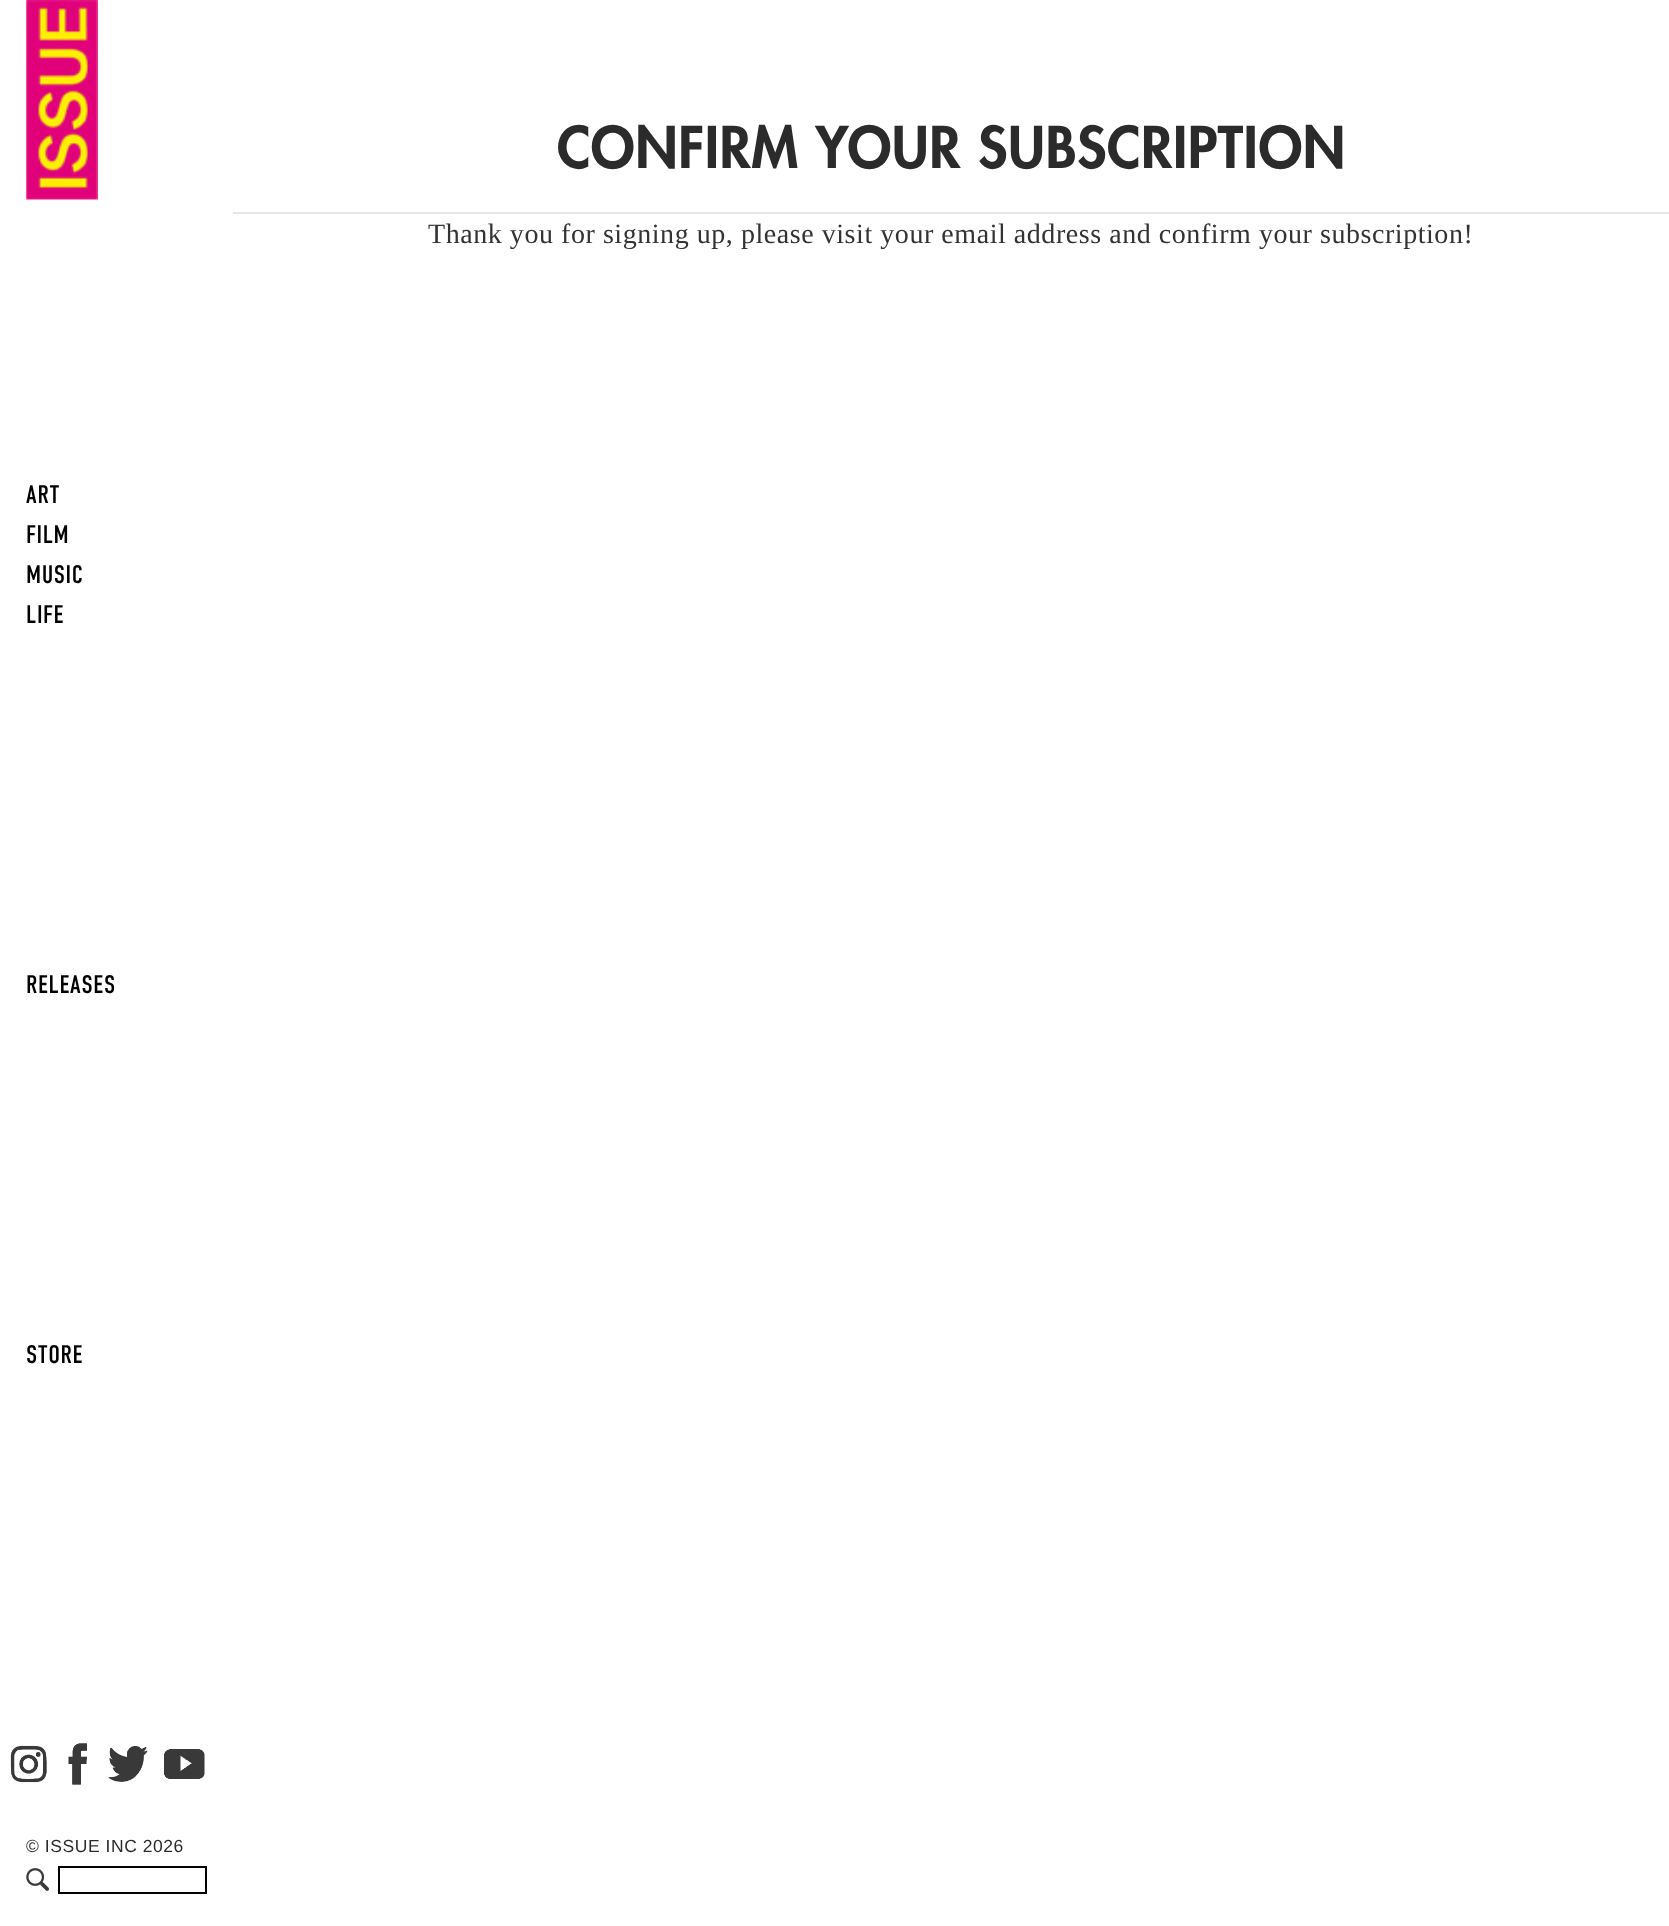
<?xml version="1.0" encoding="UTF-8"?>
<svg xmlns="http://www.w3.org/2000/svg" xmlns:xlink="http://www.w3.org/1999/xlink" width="1669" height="1926">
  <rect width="100%" height="100%" fill="#ffffff" />
  <rect x="233" y="212" width="1436" height="2" fill="#e7e7e7" />
  <image x="26" y="0" width="72" height="200" xlink:href="image1.png" />
  <image x="10" y="1745" width="37" height="38" xlink:href="image2.png" />
  <image x="68" y="1743" width="19" height="42" xlink:href="image3.png" />
  <image x="108" y="1746" width="40" height="36" xlink:href="image4.png" />
  <image x="164" y="1749" width="41" height="30" xlink:href="image5.png" />
  <image x="26" y="1868" width="23" height="23" xlink:href="image6.png" />
  <rect x="59" y="1867" width="147" height="26" fill="none" stroke="#000000" stroke-width="2" />
  <text x="557" y="168" style="font-family: Futura; font-size: 56px; font-weight: 900; letter-spacing: 0.55px; fill: #2b2b2b">CONFIRM YOUR SUBSCRIPTION</text>
  <text x="428" y="243" style="font-family: Liberation Serif; font-size: 28px; letter-spacing: 0.55px; fill: #333333">Thank you for signing up, please visit your email address and confirm your subscription!</text>
  <text x="26" y="503" style="font-family: 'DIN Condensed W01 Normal'; font-size: 25.5px; letter-spacing: 0.55px; fill: #000000">ART</text>
  <text x="26" y="543" style="font-family: 'DIN Condensed W01 Normal'; font-size: 25.5px; letter-spacing: 0.55px; fill: #000000">FILM</text>
  <text x="26" y="583" style="font-family: 'DIN Condensed W01 Normal'; font-size: 25.5px; letter-spacing: 0.55px; fill: #000000">MUSIC</text>
  <text x="26" y="623" style="font-family: 'DIN Condensed W01 Normal'; font-size: 25.5px; letter-spacing: 0.55px; fill: #000000">LIFE</text>
  <text x="26" y="993" style="font-family: 'DIN Condensed W01 Normal'; font-size: 25.5px; letter-spacing: 0.55px; fill: #000000">RELEASES</text>
  <text x="26" y="1363" style="font-family: 'DIN Condensed W01 Normal'; font-size: 25.5px; letter-spacing: 0.55px; fill: #000000">STORE</text>
  <text x="26" y="1852" style="font-family: Liberation Sans; font-size: 17.5px; letter-spacing: 0.55px; fill: #2b2b2b">© ISSUE INC 2026</text>
</svg>
